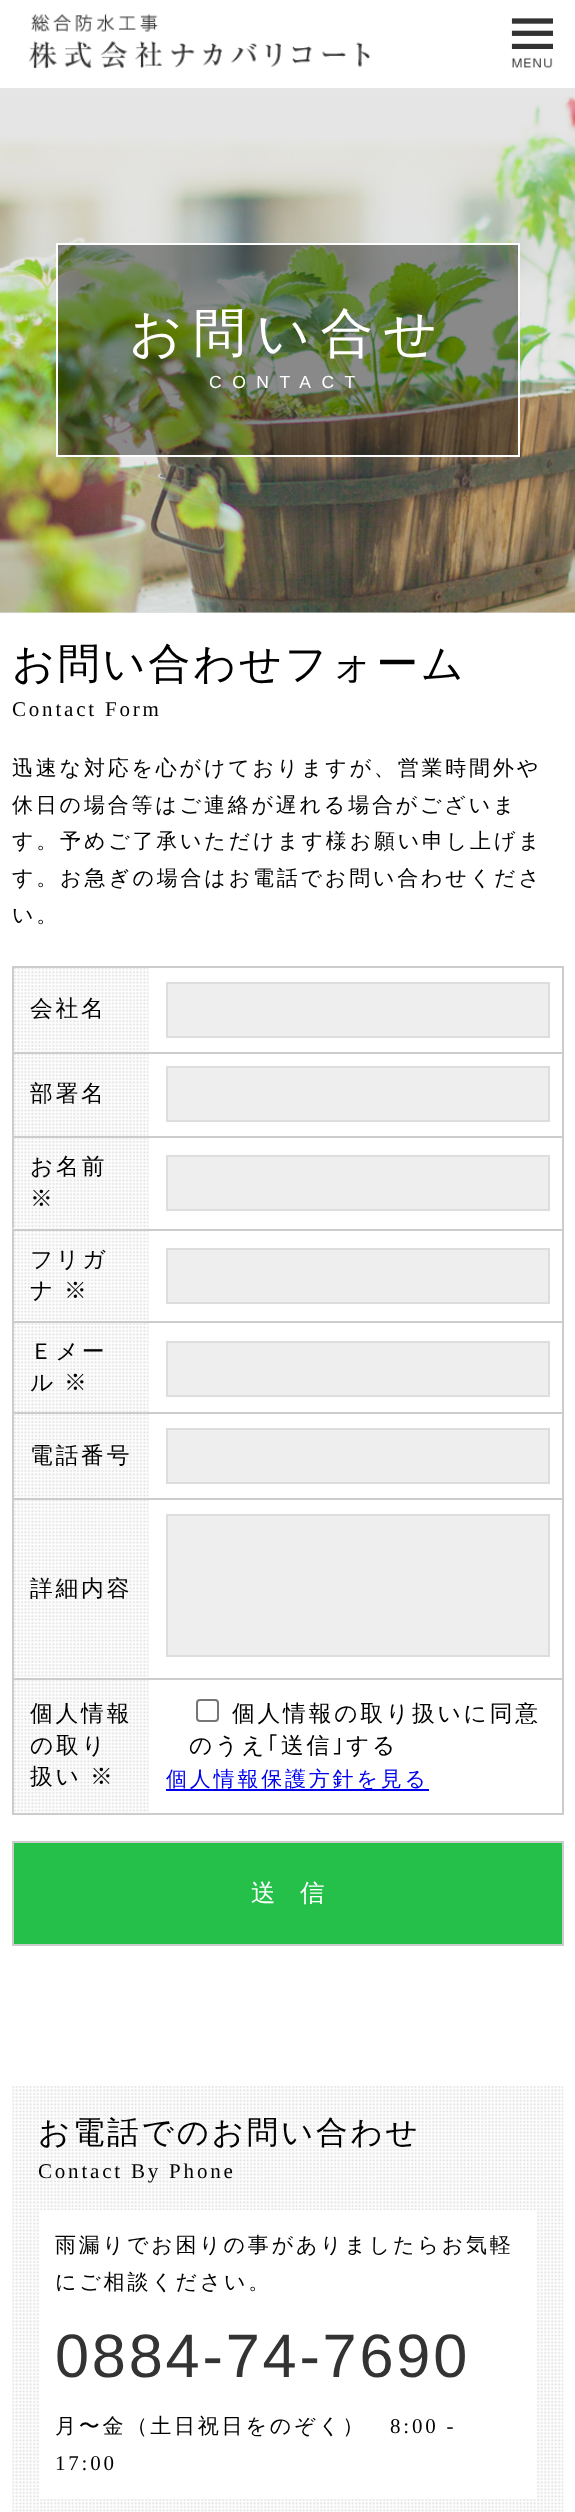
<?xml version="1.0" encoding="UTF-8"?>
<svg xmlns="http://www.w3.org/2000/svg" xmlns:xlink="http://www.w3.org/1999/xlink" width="575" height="2512">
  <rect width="100%" height="100%" fill="#ffffff" />
  <rect y="88" width="575" height="525" fill="#e6e6e6" />
  <image x="28" y="14" width="342" height="55" xlink:href="image1.png" />
  <image x="511" y="18" width="42" height="50" xlink:href="image2.png" />
  <image x="0" y="96" width="575" height="517" xlink:href="image3.png" />
  <rect x="57" y="244" width="462" height="212" fill="#000000" fill-opacity="0.4" stroke="#ffffff" stroke-width="2" />
  <rect x="562" y="966" width="2" height="849" fill="#cccccc" />
  <rect x="12" y="1813" width="552" height="2" fill="#cccccc" />
  <image x="14" y="968" width="135" height="84" xlink:href="image4.png" />
  <rect x="12" y="966" width="550" height="2" fill="#cccccc" />
  <rect x="12" y="966" width="2" height="86" fill="#cccccc" />
  <rect x="167" y="983" width="382" height="54" fill="#eeeeee" stroke="#dddddd" stroke-width="2" />
  <image x="12" y="1051" width="137" height="85" xlink:href="image5.png" />
  <rect x="12" y="1052" width="550" height="2" fill="#cccccc" />
  <rect x="12" y="1052" width="2" height="84" fill="#cccccc" />
  <rect x="167" y="1067" width="382" height="54" fill="#eeeeee" stroke="#dddddd" stroke-width="2" />
  <image x="12" y="1135" width="137" height="94" xlink:href="image6.png" />
  <rect x="12" y="1136" width="550" height="2" fill="#cccccc" />
  <rect x="12" y="1136" width="2" height="93" fill="#cccccc" />
  <rect x="167" y="1156" width="382" height="54" fill="#eeeeee" stroke="#dddddd" stroke-width="2" />
  <image x="12" y="1228" width="137" height="93" xlink:href="image7.png" />
  <rect x="12" y="1229" width="550" height="2" fill="#cccccc" />
  <rect x="12" y="1229" width="2" height="92" fill="#cccccc" />
  <rect x="167" y="1249" width="382" height="54" fill="#eeeeee" stroke="#dddddd" stroke-width="2" />
  <image x="14" y="1323" width="135" height="89" xlink:href="image8.png" />
  <rect x="12" y="1321" width="550" height="2" fill="#cccccc" />
  <rect x="12" y="1321" width="2" height="91" fill="#cccccc" />
  <rect x="167" y="1342" width="382" height="54" fill="#eeeeee" stroke="#dddddd" stroke-width="2" />
  <image x="14" y="1414" width="135" height="84" xlink:href="image9.png" />
  <rect x="12" y="1412" width="550" height="2" fill="#cccccc" />
  <rect x="12" y="1412" width="2" height="86" fill="#cccccc" />
  <rect x="167" y="1429" width="382" height="54" fill="#eeeeee" stroke="#dddddd" stroke-width="2" />
  <image x="14" y="1500" width="135" height="178" xlink:href="image10.png" />
  <rect x="12" y="1498" width="550" height="2" fill="#cccccc" />
  <rect x="12" y="1498" width="2" height="180" fill="#cccccc" />
  <rect x="167" y="1515" width="382" height="141" fill="#eeeeee" stroke="#dddddd" stroke-width="2" />
  <image x="14" y="1680" width="135" height="133" xlink:href="image11.png" />
  <rect x="12" y="1678" width="550" height="2" fill="#cccccc" />
  <rect x="12" y="1678" width="2" height="135" fill="#cccccc" />
  <rect x="197" y="1700" width="21" height="21" rx="3" fill="none" stroke="#767676" stroke-width="2" />
  <rect x="166" y="1789" width="263" height="2" fill="#0000ee" />
  <rect x="13" y="1842" width="550" height="103" fill="#25c04a" stroke="#cccccc" stroke-width="2" />
  <image x="12" y="2086" width="552" height="426" xlink:href="image12.png" />
  <rect x="40" y="2210" width="496" height="289" fill="#ffffff" />
  <text x="129" y="351" style="font-family: WenQuanYi Zen Hei; font-size: 52.5px; font-weight: 500; letter-spacing: 10.5px; fill: #ffffff">お問い合せ</text>
  <text x="209" y="388" style="font-family: Liberation Sans; font-size: 17.5px; letter-spacing: 10.5px; fill: #ffffff">CONTACT</text>
  <text x="12" y="678" style="font-family: WenQuanYi Zen Hei; font-size: 42px; font-weight: 500; letter-spacing: 2.8px; fill: #000000">お問い合わせフォーム</text>
  <text x="12" y="716" style="font-family: Liberation Serif; font-size: 21px; letter-spacing: 2.8px; fill: #000000">Contact Form</text>
  <text x="12" y="775" style="font-family: WenQuanYi Zen Hei; font-size: 21px; font-weight: 500; letter-spacing: 2.8px; fill: #000000">迅速な対応を心がけておりますが、営業時間外や</text>
  <text x="12" y="812" style="font-family: WenQuanYi Zen Hei; font-size: 21px; font-weight: 500; letter-spacing: 2.8px; fill: #000000">休日の場合等はご連絡が遅れる場合がございま</text>
  <text x="12" y="848" style="font-family: WenQuanYi Zen Hei; font-size: 21px; font-weight: 500; letter-spacing: 2.8px; fill: #000000">す。予めご了承いただけます様お願い申し上げま</text>
  <text x="12" y="885" style="font-family: WenQuanYi Zen Hei; font-size: 21px; font-weight: 500; letter-spacing: 2.8px; fill: #000000">す。お急ぎの場合はお電話でお問い合わせくださ</text>
  <text x="12" y="922" style="font-family: WenQuanYi Zen Hei; font-size: 21px; font-weight: 500; letter-spacing: 2.8px; fill: #000000">い。</text>
  <text x="30" y="1016" style="font-family: WenQuanYi Zen Hei; font-size: 22.75px; font-weight: 500; letter-spacing: 2.8px; fill: #000000">会社名</text>
  <text x="30" y="1101" style="font-family: WenQuanYi Zen Hei; font-size: 22.75px; font-weight: 500; letter-spacing: 2.8px; fill: #000000">部署名</text>
  <text x="30" y="1174" style="font-family: WenQuanYi Zen Hei; font-size: 22.75px; font-weight: 500; letter-spacing: 2.8px; fill: #000000">お名前</text>
  <text x="30" y="1206" style="font-family: WenQuanYi Zen Hei; font-size: 22.75px; font-weight: 500; letter-spacing: 2.8px; fill: #000000">※</text>
  <text x="30" y="1267" style="font-family: WenQuanYi Zen Hei; font-size: 22.75px; font-weight: 500; letter-spacing: 2.8px; fill: #000000">フリガ</text>
  <text x="30" y="1298" style="font-family: WenQuanYi Zen Hei; font-size: 22.75px; font-weight: 500; letter-spacing: 2.8px; fill: #000000">ナ</text>
  <text x="64" y="1298" style="font-family: WenQuanYi Zen Hei; font-size: 22.75px; font-weight: 500; letter-spacing: 2.8px; fill: #000000">※</text>
  <text x="30" y="1359" style="font-family: WenQuanYi Zen Hei; font-size: 22.75px; font-weight: 500; letter-spacing: 2.8px; fill: #000000">Ｅメー</text>
  <text x="30" y="1390" style="font-family: WenQuanYi Zen Hei; font-size: 22.75px; font-weight: 500; letter-spacing: 2.8px; fill: #000000">ル</text>
  <text x="64" y="1390" style="font-family: WenQuanYi Zen Hei; font-size: 22.75px; font-weight: 500; letter-spacing: 2.8px; fill: #000000">※</text>
  <text x="30" y="1463" style="font-family: WenQuanYi Zen Hei; font-size: 22.75px; font-weight: 500; letter-spacing: 2.8px; fill: #000000">電話番号</text>
  <text x="30" y="1596" style="font-family: WenQuanYi Zen Hei; font-size: 22.75px; font-weight: 500; letter-spacing: 2.8px; fill: #000000">詳細内容</text>
  <text x="30" y="1721" style="font-family: WenQuanYi Zen Hei; font-size: 22.75px; font-weight: 500; letter-spacing: 2.8px; fill: #000000">個人情報</text>
  <text x="30" y="1753" style="font-family: WenQuanYi Zen Hei; font-size: 22.75px; font-weight: 500; letter-spacing: 2.8px; fill: #000000">の取り</text>
  <text x="30" y="1784" style="font-family: WenQuanYi Zen Hei; font-size: 22.75px; font-weight: 500; letter-spacing: 2.8px; fill: #000000">扱い</text>
  <text x="90" y="1784" style="font-family: WenQuanYi Zen Hei; font-size: 22.75px; font-weight: 500; letter-spacing: 2.8px; fill: #000000">※</text>
  <text x="232" y="1721" style="font-family: WenQuanYi Zen Hei; font-size: 22.75px; font-weight: 500; letter-spacing: 2.8px; fill: #000000">個人情報の取り扱いに同意</text>
  <text x="189" y="1753" style="font-family: WenQuanYi Zen Hei; font-size: 22.75px; font-weight: 500; letter-spacing: 2.8px; fill: #000000">のうえ</text>
  <text x="267" y="1753" style="font-family: IPAPGothic; font-size: 22.75px; letter-spacing: 2.8px; fill: #000000">｢</text>
  <text x="281" y="1753" style="font-family: WenQuanYi Zen Hei; font-size: 22.75px; font-weight: 500; letter-spacing: 2.8px; fill: #000000">送信</text>
  <text x="332" y="1753" style="font-family: IPAPGothic; font-size: 22.75px; letter-spacing: 2.8px; fill: #000000">｣</text>
  <text x="346" y="1753" style="font-family: WenQuanYi Zen Hei; font-size: 22.75px; font-weight: 500; letter-spacing: 2.8px; fill: #000000">する</text>
  <text x="166" y="1786" style="font-family: WenQuanYi Zen Hei; font-size: 21px; font-weight: 500; letter-spacing: 2.8px; fill: #0000ee">個人情報保護方針を見る</text>
  <text x="251" y="1901" style="font-family: WenQuanYi Zen Hei; font-size: 24.5px; font-weight: 500; fill: #ffffff">送　信</text>
  <text x="38" y="2143" style="font-family: WenQuanYi Zen Hei; font-size: 31.5px; font-weight: 500; letter-spacing: 2.8px; fill: #000000">お電話でのお問い合わせ</text>
  <text x="38" y="2178" style="font-family: Liberation Serif; font-size: 21px; letter-spacing: 2.8px; fill: #000000">Contact By Phone</text>
  <text x="55" y="2252" style="font-family: WenQuanYi Zen Hei; font-size: 21px; font-weight: 500; letter-spacing: 2.8px; fill: #000000">雨漏りでお困りの事がありましたらお気軽</text>
  <text x="55" y="2289" style="font-family: WenQuanYi Zen Hei; font-size: 21px; font-weight: 500; letter-spacing: 2.8px; fill: #000000">にご相談ください。</text>
  <text x="55" y="2377" style="font-family: Liberation Sans; font-size: 61.25px; letter-spacing: 2.8px; fill: #333333">0884-74-7690</text>
  <text x="55" y="2433" style="font-family: WenQuanYi Zen Hei; font-size: 21px; font-weight: 500; letter-spacing: 2.8px; fill: #000000">月〜金（土日祝日をのぞく）</text>
  <text x="390" y="2433" style="font-family: Liberation Serif; font-size: 21px; letter-spacing: 2.8px; fill: #000000">8:00 -</text>
  <text x="55" y="2470" style="font-family: Liberation Serif; font-size: 21px; letter-spacing: 2.8px; fill: #000000">17:00</text>
</svg>
